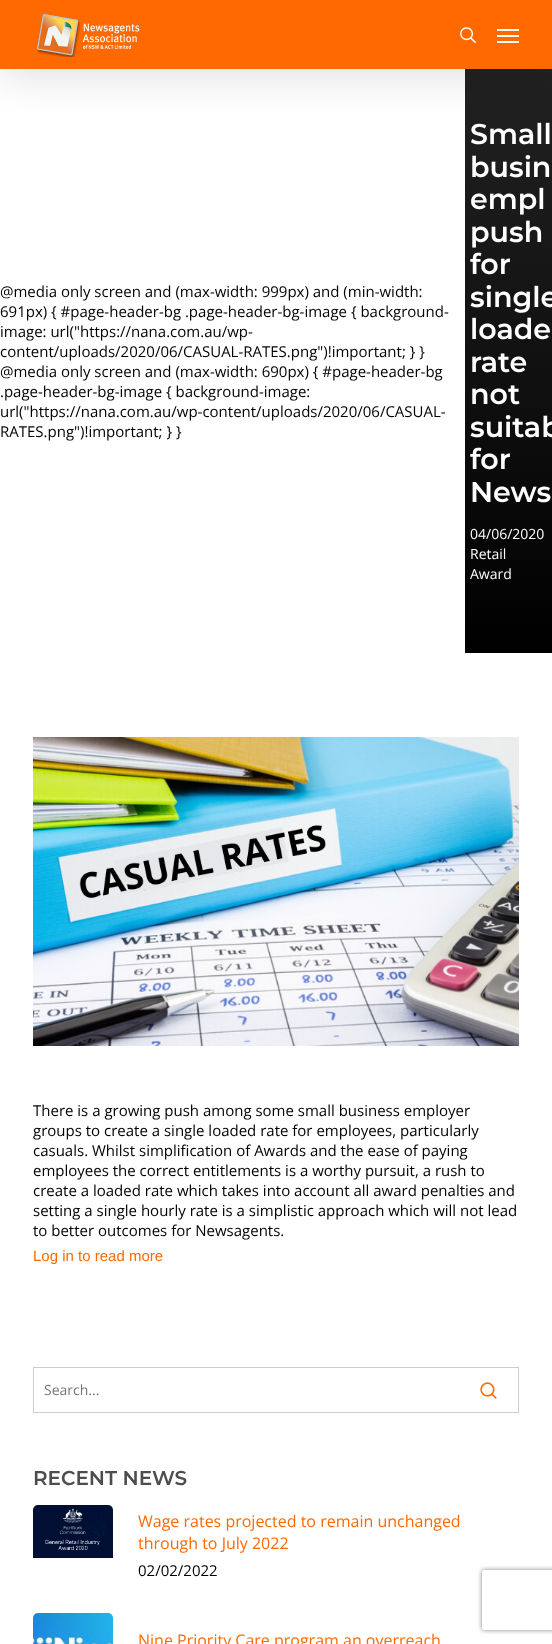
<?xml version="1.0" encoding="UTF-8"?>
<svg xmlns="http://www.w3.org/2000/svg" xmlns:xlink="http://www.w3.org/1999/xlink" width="552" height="1644">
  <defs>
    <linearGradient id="g1" gradientUnits="userSpaceOnUse" x1="508" y1="68" x2="509" y2="653"><stop offset="0" stop-color="#222222" /><stop offset="1" stop-color="#000000" /></linearGradient>
    <clipPath id="clip1"><path d="M 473 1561 h 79 v 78 h -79 z m 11 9 h 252 c 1 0 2 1 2 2 v 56 c 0 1 -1 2 -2 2 h -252 c -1 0 -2 -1 -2 -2 v -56 c 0 -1 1 -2 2 -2 z" clip-rule="evenodd" /></clipPath>
  </defs>
  <rect width="100%" height="100%" fill="#ffffff" />
  <rect x="465" y="69" width="87" height="584" fill="url(#g1)" />
  <rect y="3" width="552" height="69" fill="#000000" fill-opacity="0.15" filter="blur(22.5px)" />
  <rect width="552" height="69" fill="#ff6900" />
  <image x="37" y="14" width="103" height="43" xlink:href="image1.png" />
  <image x="460" y="27" width="16" height="16" xlink:href="image2.png" />
  <rect x="497" y="29" width="22" height="2" fill="#ffffff" />
  <rect x="497" y="41" width="22" height="2" fill="#ffffff" />
  <rect x="497" y="35" width="22" height="2" fill="#ffffff" />
  <image x="33" y="737" width="486" height="309" xlink:href="image3.png" />
  <rect x="33.5" y="1367.5" width="485" height="45" fill="none" stroke="#cccccc" />
  <image x="480" y="1382" width="17" height="17" xlink:href="image4.png" />
  <image x="33" y="1505" width="80" height="53" xlink:href="image5.png" />
  <image x="33" y="1613" width="80" height="31" xlink:href="image6.png" />
  <g clip-path="url(#clip1)">
    <rect x="482" y="1570" width="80" height="60" rx="2" fill="#808080" filter="blur(2.5px)" />
  </g>
  <text x="0" y="297" style="font-family: Open Sans; font-size: 15px; fill: #000000">@media only screen and (max-width: 999px) and (min-width:</text>
  <text x="470" y="144" style="font-family: Montserrat; font-size: 28.5px; font-weight: 600; fill: #ffffff">Small</text>
  <text x="470" y="177" style="font-family: Montserrat; font-size: 28.5px; font-weight: 600; fill: #ffffff">busin</text>
  <text x="470" y="209" style="font-family: Montserrat; font-size: 28.5px; font-weight: 600; fill: #ffffff">empl</text>
  <text x="470" y="242" style="font-family: Montserrat; font-size: 28.5px; font-weight: 600; fill: #ffffff">push</text>
  <text x="470" y="274" style="font-family: Montserrat; font-size: 28.5px; font-weight: 600; fill: #ffffff">for</text>
  <text x="470" y="307" style="font-family: Montserrat; font-size: 28.5px; font-weight: 600; fill: #ffffff">single</text>
  <text x="470" y="339" style="font-family: Montserrat; font-size: 28.5px; font-weight: 600; fill: #ffffff">loade</text>
  <text x="470" y="372" style="font-family: Montserrat; font-size: 28.5px; font-weight: 600; fill: #ffffff">rate</text>
  <text x="470" y="404" style="font-family: Montserrat; font-size: 28.5px; font-weight: 600; fill: #ffffff">not</text>
  <text x="470" y="437" style="font-family: Montserrat; font-size: 28.5px; font-weight: 600; fill: #ffffff">suitab</text>
  <text x="470" y="469" style="font-family: Montserrat; font-size: 28.5px; font-weight: 600; fill: #ffffff">for</text>
  <text x="470" y="502" style="font-family: Montserrat; font-size: 28.5px; font-weight: 600; fill: #ffffff">News</text>
  <text x="470" y="539" style="font-family: Open Sans; font-size: 14px; fill: #ffffff">04/06/2020</text>
  <text x="470" y="559" style="font-family: Open Sans; font-size: 14px; fill: #ffffff">Retail</text>
  <text x="470" y="579" style="font-family: Open Sans; font-size: 14px; fill: #ffffff">Award</text>
  <text x="0" y="317" style="font-family: Open Sans; font-size: 15px; fill: #000000">691px) { #page-header-bg .page-header-bg-image { background-</text>
  <text x="0" y="337" style="font-family: Open Sans; font-size: 15px; fill: #000000">image: url("https://nana.com.au/wp-</text>
  <text x="0" y="357" style="font-family: Open Sans; font-size: 15px; fill: #000000">content/uploads/2020/06/CASUAL-RATES.png")!important; } }</text>
  <text x="0" y="377" style="font-family: Open Sans; font-size: 15px; fill: #000000">@media only screen and (max-width: 690px) { #page-header-bg</text>
  <text x="0" y="397" style="font-family: Open Sans; font-size: 15px; fill: #000000">.page-header-bg-image { background-image:</text>
  <text x="0" y="417" style="font-family: Open Sans; font-size: 15px; fill: #000000">url("https://nana.com.au/wp-content/uploads/2020/06/CASUAL-</text>
  <text x="0" y="437" style="font-family: Open Sans; font-size: 15px; fill: #000000">RATES.png")!important; } }</text>
  <text x="33" y="1116" style="font-family: Open Sans; font-size: 15px; fill: #000000">There is a growing push among some small business employer</text>
  <text x="33" y="1136" style="font-family: Open Sans; font-size: 15px; fill: #000000">groups to create a single loaded rate for employees, particularly</text>
  <text x="33" y="1156" style="font-family: Open Sans; font-size: 15px; fill: #000000">casuals. Whilst simplification of Awards and the ease of paying</text>
  <text x="33" y="1176" style="font-family: Open Sans; font-size: 15px; fill: #000000">employees the correct entitlements is a worthy pursuit, a rush to</text>
  <text x="33" y="1196" style="font-family: Open Sans; font-size: 15px; fill: #000000">create a loaded rate which takes into account all award penalties and</text>
  <text x="33" y="1216" style="font-family: Open Sans; font-size: 15px; fill: #000000">setting a single hourly rate is a simplistic approach which will not lead</text>
  <text x="33" y="1236" style="font-family: Open Sans; font-size: 15px; fill: #000000">to better outcomes for Newsagents.</text>
  <text x="33" y="1261" style="font-family: Liberation Sans; font-size: 15px; fill: #ff6900">Log in to read more</text>
  <text x="44" y="1395" style="font-family: Open Sans; font-size: 14px; fill: #757575">Search...</text>
  <text x="33" y="1485" style="font-family: Montserrat; font-size: 20px; font-weight: 600; fill: #4d4d4d">RECENT NEWS</text>
  <text x="138" y="1527" style="font-family: Open Sans; font-size: 16px; fill: #ff6900">Wage rates projected to remain unchanged</text>
  <text x="138" y="1549" style="font-family: Open Sans; font-size: 16px; fill: #ff6900">through to July 2022</text>
  <text x="138" y="1576" style="font-family: Open Sans; font-size: 15px; fill: #000000">02/02/2022</text>
  <text x="138" y="1646" style="font-family: Open Sans; font-size: 16px; fill: #ff6900">Nine Priority Care program an overreach</text>
</svg>
